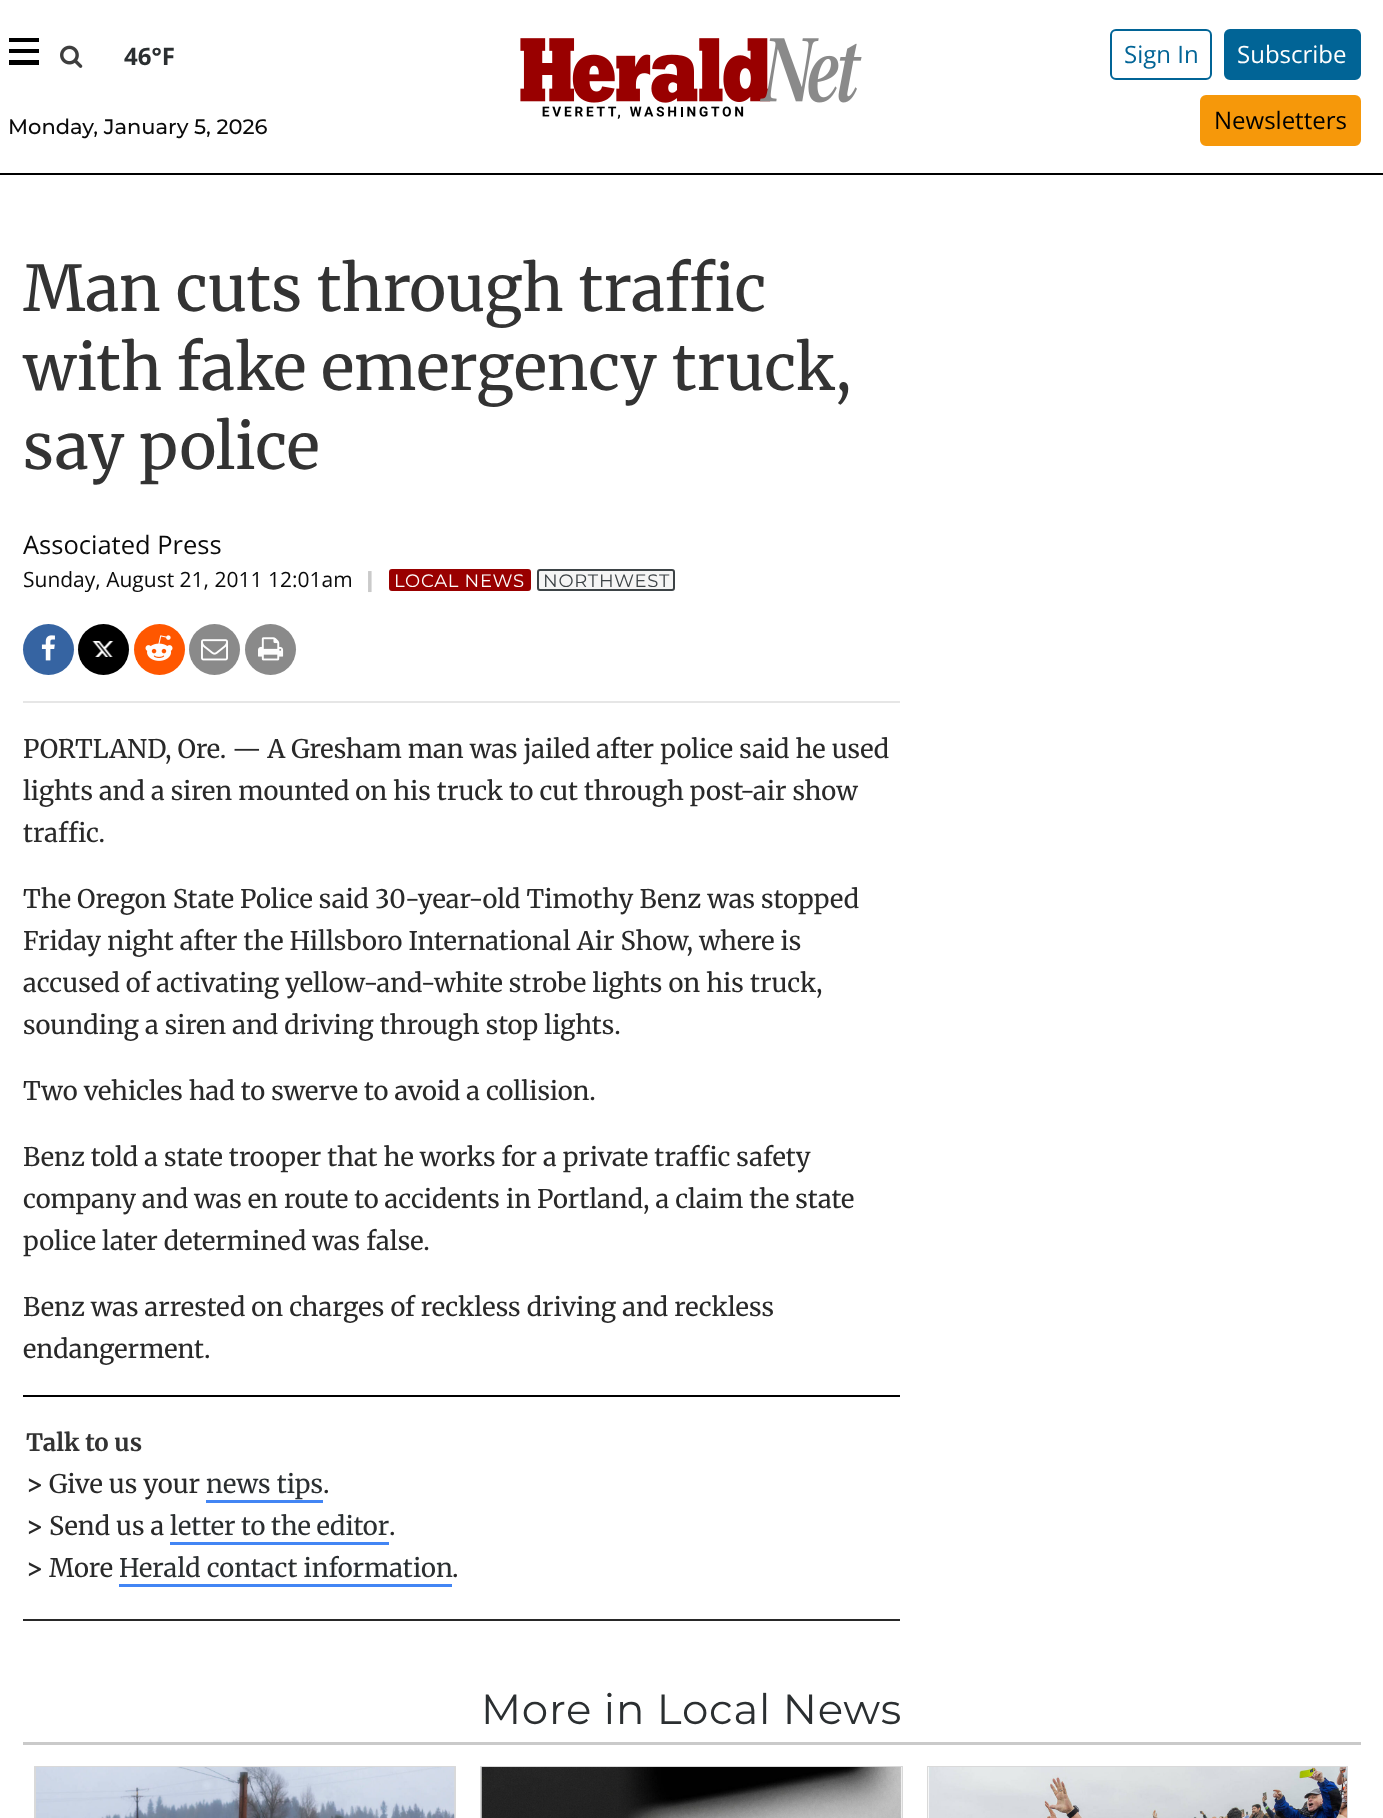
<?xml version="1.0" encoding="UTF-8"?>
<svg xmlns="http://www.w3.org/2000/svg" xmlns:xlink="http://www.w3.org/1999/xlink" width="1383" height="1818">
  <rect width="100%" height="100%" fill="#ffffff" />
  <rect y="173" width="1383" height="2" fill="#000000" />
  <rect x="9" y="38" width="30" height="4" fill="#000000" />
  <rect x="9" y="49" width="30" height="4" fill="#000000" />
  <rect x="9" y="60" width="30" height="5" fill="#000000" />
  <image x="60" y="45" width="23" height="23" xlink:href="image1.png" />
  <image x="520" y="38" width="342" height="81" xlink:href="image2.png" />
  <rect x="1111" y="30" width="100" height="49" rx="5" fill="none" stroke="#016496" stroke-width="2" />
  <rect x="1225" y="30" width="135" height="49" rx="5" fill="#016496" stroke="#016496" stroke-width="2" />
  <rect x="1201" y="96" width="159" height="49" rx="5" fill="#f6980a" stroke="#f6980a" stroke-width="2" />
  <rect x="390" y="570" width="140" height="20" rx="2" fill="#990000" stroke="#990000" stroke-width="2" />
  <rect x="538" y="570" width="136" height="20" rx="2" fill="#f5f5f5" stroke="#3d4346" stroke-width="2" />
  <rect x="23" y="701" width="877" height="2" fill="#e6e6e6" />
  <circle cx="48.5" cy="649.5" r="25.5" fill="#3664a2" />
  <image x="41" y="635" width="14" height="26" xlink:href="image3.png" />
  <circle cx="103.5" cy="649.5" r="25.5" fill="#000000" />
  <image x="92" y="641" width="22" height="16" xlink:href="image4.png" />
  <circle cx="159.5" cy="649.5" r="25.5" fill="#ff5700" />
  <image x="145" y="635" width="28" height="26" xlink:href="image5.png" />
  <circle cx="214.5" cy="649.5" r="25.5" fill="#8a8a8a" />
  <image x="201" y="639" width="27" height="22" xlink:href="image6.png" />
  <circle cx="270.5" cy="649.5" r="25.5" fill="#8a8a8a" />
  <image x="258" y="637" width="26" height="24" xlink:href="image7.png" />
  <rect x="23" y="1395" width="877" height="2" fill="#000000" />
  <rect x="23" y="1619" width="877" height="2" fill="#292929" />
  <rect x="206" y="1500" width="117" height="3" fill="#4285f4" />
  <rect x="170" y="1542" width="219" height="3" fill="#4285f4" />
  <rect x="119" y="1584" width="333" height="3" fill="#4285f4" />
  <rect x="23" y="1742" width="1338" height="3" fill="#cacaca" />
  <path d="M 34 1766 h 422 l -2 1 h -418 z" fill="#d9d9d9" />
  <path d="M 456 1766 v 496 l -2 -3 v -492 z" fill="#000000" fill-opacity="0.15" />
  <path d="M 34 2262 v -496 l 2 1 v 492 z" fill="#000000" fill-opacity="0.15" />
  <image x="36" y="1767" width="419" height="51" xlink:href="image8.png" />
  <path d="M 480 1766 h 423 l -1 1 h -420 z" fill="#d9d9d9" />
  <path d="M 903 1766 v 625 l -1 -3 v -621 z" fill="#000000" fill-opacity="0.15" />
  <path d="M 480 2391 v -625 l 2 1 v 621 z" fill="#000000" fill-opacity="0.15" />
  <image x="481" y="1767" width="421" height="51" xlink:href="image9.png" />
  <path d="M 927 1766 h 421 l -1 1 h -419 z" fill="#d9d9d9" />
  <path d="M 1348 1766 v 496 l -1 -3 v -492 z" fill="#000000" fill-opacity="0.15" />
  <path d="M 927 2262 v -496 l 1 1 v 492 z" fill="#000000" fill-opacity="0.15" />
  <image x="928" y="1767" width="419" height="51" xlink:href="image10.png" />
  <text x="124" y="65" style="font-family: Open Sans; font-size: 24px; font-weight: bold; fill: #2b2f31">46°F</text>
  <text x="8" y="134" style="font-family: Montserrat; font-size: 21px; font-weight: 500; fill: #0a0a0a">Monday, January 5, 2026</text>
  <text x="1124" y="63" style="font-family: Open Sans; font-size: 24px; fill: #016496">Sign In</text>
  <text x="1237" y="63" style="font-family: Open Sans; font-size: 24px; fill: #fefefe">Subscribe</text>
  <text x="1214" y="129" style="font-family: Open Sans; font-size: 24px; fill: #000000">Newsletters</text>
  <text x="23" y="311" style="font-family: Merriweather; font-size: 63px; fill: #333333">Man cuts through traffic</text>
  <text x="23" y="390" style="font-family: Merriweather; font-size: 63px; fill: #333333">with fake emergency truck,</text>
  <text x="23" y="469" style="font-family: Merriweather; font-size: 63px; fill: #333333">say police</text>
  <text x="23" y="554" style="font-family: Open Sans; font-size: 25.5px; fill: #0a0a0a">Associated Press</text>
  <text x="23" y="587" style="font-family: Open Sans; font-size: 21px; fill: #0a0a0a">Sunday, August 21, 2011 12:01am</text>
  <text x="361" y="587" style="font-family: DejaVu Sans; font-size: 21px; fill: #cacaca">❙</text>
  <text x="394" y="587" style="font-family: Montserrat; font-size: 18px; letter-spacing: 0.75px; fill: #fefefe">LOCAL NEWS</text>
  <text x="543" y="587" style="font-family: Montserrat; font-size: 18px; letter-spacing: 0.75px; fill: #3d4346">NORTHWEST</text>
  <text x="23" y="758" style="font-family: Merriweather; font-size: 25.5px; fill: #292929">PORTLAND, Ore. — A Gresham man was jailed after police said he used</text>
  <text x="23" y="800" style="font-family: Merriweather; font-size: 25.5px; fill: #292929">lights and a siren mounted on his truck to cut through post-air show</text>
  <text x="23" y="842" style="font-family: Merriweather; font-size: 25.5px; fill: #292929">traffic.</text>
  <text x="23" y="908" style="font-family: Merriweather; font-size: 25.5px; fill: #292929">The Oregon State Police said 30-year-old Timothy Benz was stopped</text>
  <text x="23" y="950" style="font-family: Merriweather; font-size: 25.5px; fill: #292929">Friday night after the Hillsboro International Air Show, where is</text>
  <text x="23" y="992" style="font-family: Merriweather; font-size: 25.5px; fill: #292929">accused of activating yellow-and-white strobe lights on his truck,</text>
  <text x="23" y="1034" style="font-family: Merriweather; font-size: 25.5px; fill: #292929">sounding a siren and driving through stop lights.</text>
  <text x="23" y="1100" style="font-family: Merriweather; font-size: 25.5px; fill: #292929">Two vehicles had to swerve to avoid a collision.</text>
  <text x="23" y="1166" style="font-family: Merriweather; font-size: 25.5px; fill: #292929">Benz told a state trooper that he works for a private traffic safety</text>
  <text x="23" y="1208" style="font-family: Merriweather; font-size: 25.5px; fill: #292929">company and was en route to accidents in Portland, a claim the state</text>
  <text x="23" y="1250" style="font-family: Merriweather; font-size: 25.5px; fill: #292929">police later determined was false.</text>
  <text x="23" y="1316" style="font-family: Merriweather; font-size: 25.5px; fill: #292929">Benz was arrested on charges of reckless driving and reckless</text>
  <text x="23" y="1358" style="font-family: Merriweather; font-size: 25.5px; fill: #292929">endangerment.</text>
  <text x="26" y="1451" style="font-family: Merriweather; font-size: 24px; font-weight: bold; fill: #333333">Talk to us</text>
  <text x="26" y="1493" style="font-family: Merriweather; font-size: 25.5px; font-weight: bold; fill: #292929">&gt;</text>
  <text x="49" y="1493" style="font-family: Merriweather; font-size: 25.5px; fill: #292929">Give us your</text>
  <text x="206" y="1493" style="font-family: Merriweather; font-size: 25.5px; fill: #2b2f31">news tips</text>
  <text x="323" y="1493" style="font-family: Merriweather; font-size: 25.5px; fill: #292929">.</text>
  <text x="26" y="1535" style="font-family: Merriweather; font-size: 25.5px; font-weight: bold; fill: #292929">&gt;</text>
  <text x="49" y="1535" style="font-family: Merriweather; font-size: 25.5px; fill: #292929">Send us a</text>
  <text x="170" y="1535" word-spacing="-0.5" style="font-family: Merriweather; font-size: 25.5px; fill: #2b2f31">letter to the editor</text>
  <text x="389" y="1535" style="font-family: Merriweather; font-size: 25.5px; fill: #292929">.</text>
  <text x="26" y="1577" style="font-family: Merriweather; font-size: 25.5px; font-weight: bold; fill: #292929">&gt;</text>
  <text x="49" y="1577" style="font-family: Merriweather; font-size: 25.5px; fill: #292929">More</text>
  <text x="119" y="1577" style="font-family: Merriweather; font-size: 25.5px; fill: #2b2f31">Herald contact information</text>
  <text x="452" y="1577" style="font-family: Merriweather; font-size: 25.5px; fill: #292929">.</text>
  <text x="481" y="1724" style="font-family: Montserrat; font-size: 42px; letter-spacing: 0.75px; fill: #2b2f31">More in Local News</text>
</svg>
